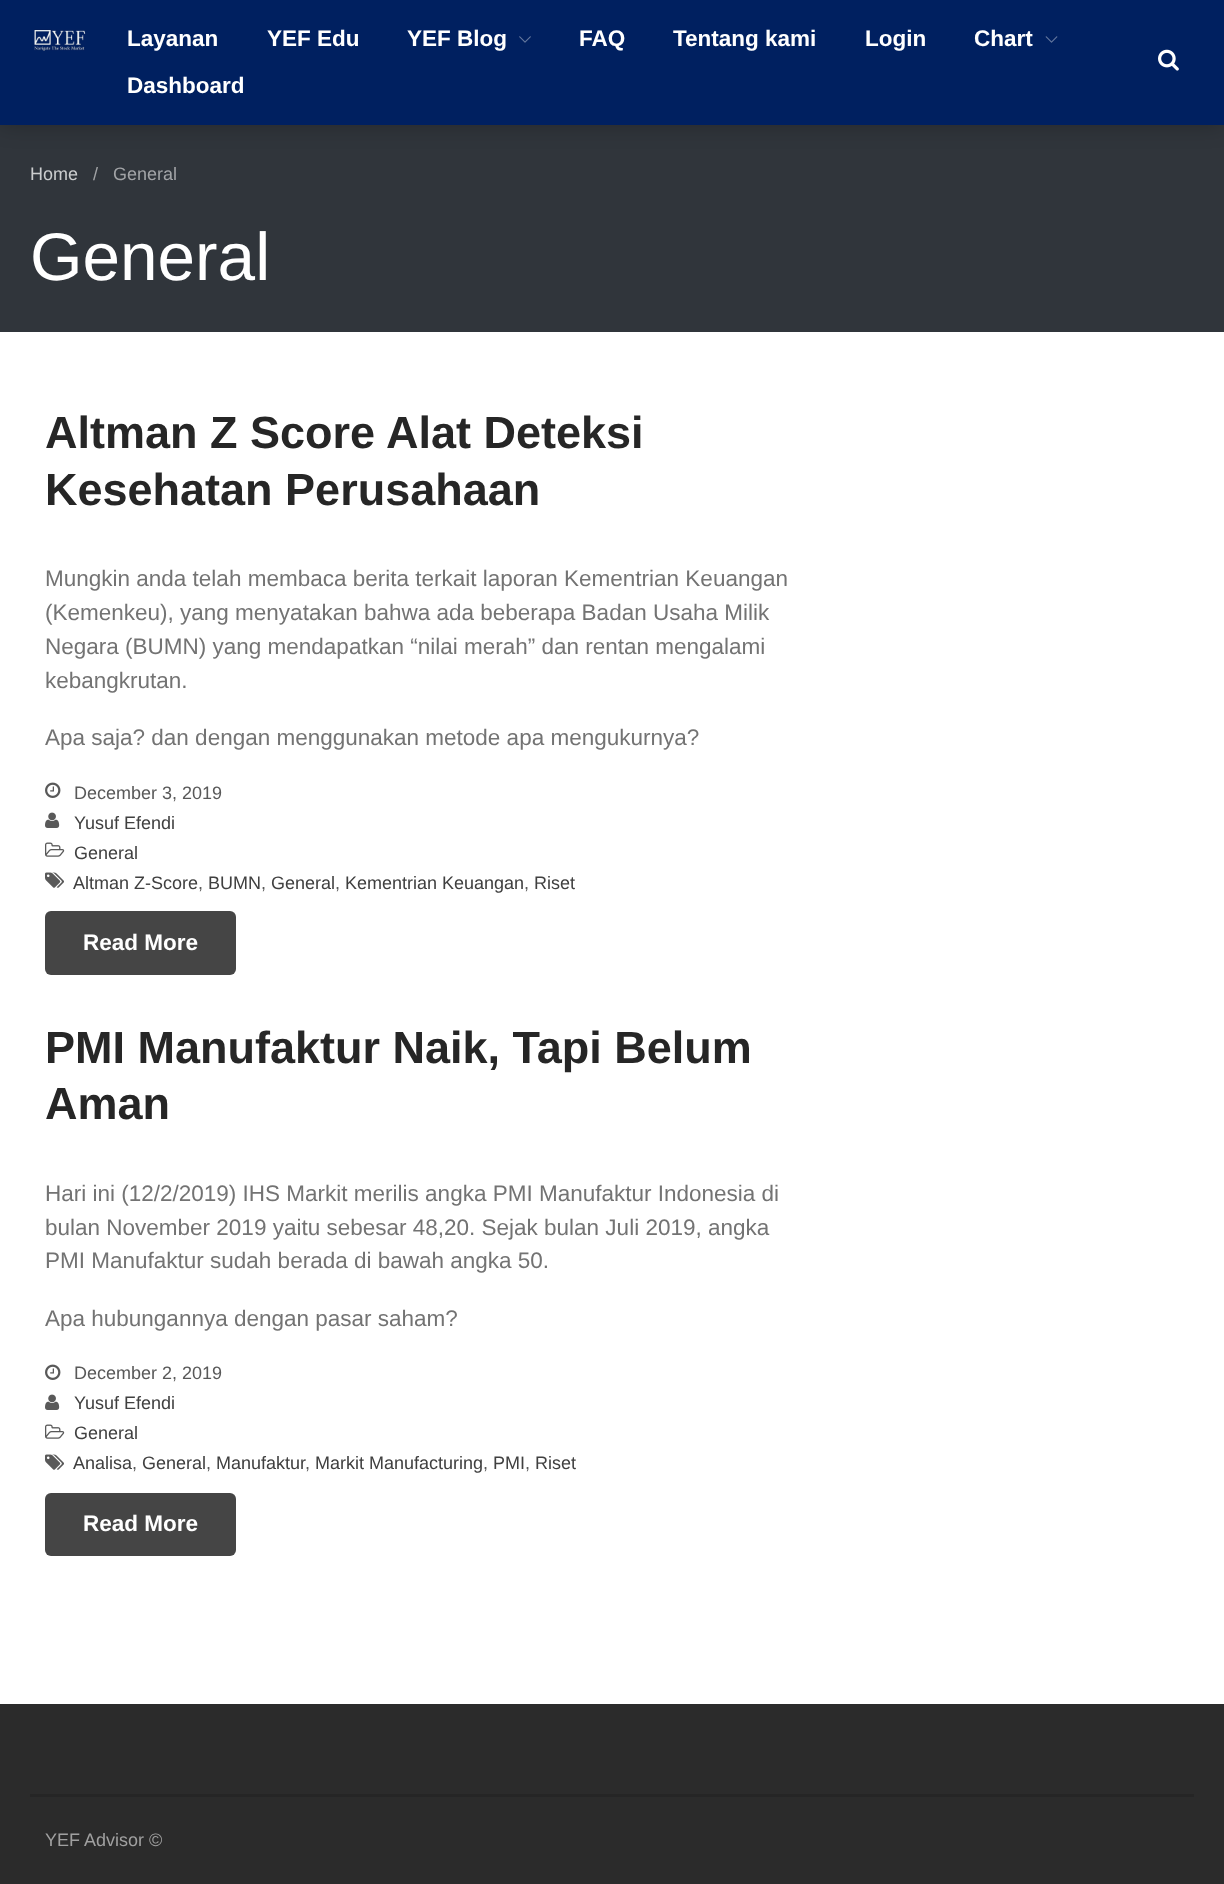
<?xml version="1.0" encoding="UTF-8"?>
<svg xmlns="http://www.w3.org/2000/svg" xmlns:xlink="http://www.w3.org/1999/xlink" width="1224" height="1884">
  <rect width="100%" height="100%" fill="#ffffff" />
  <rect y="125" width="1224" height="207" fill="#30353b" />
  <rect width="1224" height="125" fill="#000000" fill-opacity="0.25" filter="blur(11px)" />
  <rect width="1224" height="125" fill="#002060" />
  <image x="34" y="29" width="52" height="22" xlink:href="image1.png" />
  <image x="519" y="36" width="12" height="7" xlink:href="image2.png" />
  <image x="1045" y="36" width="13" height="7" xlink:href="image3.png" />
  <image x="1158" y="49" width="21" height="22" xlink:href="image4.png" />
  <image x="45" y="782" width="16" height="16" xlink:href="image5.png" />
  <image x="45" y="812" width="15" height="16" xlink:href="image6.png" />
  <image x="45" y="842" width="20" height="15" xlink:href="image7.png" />
  <image x="45" y="872" width="19" height="16" xlink:href="image8.png" />
  <rect x="45" y="911" width="191" height="64" rx="6" fill="#454545" />
  <image x="45" y="1364" width="16" height="16" xlink:href="image5.png" />
  <image x="45" y="1394" width="15" height="16" xlink:href="image6.png" />
  <image x="45" y="1424" width="20" height="15" xlink:href="image7.png" />
  <image x="45" y="1454" width="19" height="16" xlink:href="image8.png" />
  <rect x="45" y="1493" width="191" height="63" rx="6" fill="#454545" />
  <rect y="1704" width="1224" height="180" fill="#2b2b2b" />
  <rect x="30" y="1794" width="1164" height="3" fill="#252525" />
  <text x="127" y="46" style="font-family: Liberation Sans; font-size: 22.5px; font-weight: bold; fill: #ffffff">Layanan</text>
  <text x="267" y="46" style="font-family: Liberation Sans; font-size: 22.5px; font-weight: bold; fill: #ffffff">YEF Edu</text>
  <text x="407" y="46" style="font-family: Liberation Sans; font-size: 22.5px; font-weight: bold; fill: #ffffff">YEF Blog</text>
  <text x="579" y="46" style="font-family: Liberation Sans; font-size: 22.5px; font-weight: bold; fill: #ffffff">FAQ</text>
  <text x="673" y="46" style="font-family: Liberation Sans; font-size: 22.5px; font-weight: bold; fill: #ffffff">Tentang kami</text>
  <text x="865" y="46" style="font-family: Liberation Sans; font-size: 22.5px; font-weight: bold; fill: #ffffff">Login</text>
  <text x="974" y="46" style="font-family: Liberation Sans; font-size: 22.5px; font-weight: bold; fill: #ffffff">Chart</text>
  <text x="127" y="93" style="font-family: Liberation Sans; font-size: 22.5px; font-weight: bold; fill: #ffffff">Dashboard</text>
  <text x="30" y="180" style="font-family: Liberation Sans; font-size: 18px; fill: #cbcdce">Home</text>
  <text x="93" y="180" style="font-family: Liberation Sans; font-size: 18px; fill: #a2a4a7">/</text>
  <text x="113" y="180" style="font-family: Liberation Sans; font-size: 18px; fill: #a2a4a7">General</text>
  <text x="30" y="280" style="font-family: Liberation Sans; font-size: 67.5px; fill: #ffffff">General</text>
  <text x="45" y="448" style="font-family: Liberation Sans; font-size: 45px; font-weight: bold; fill: #262626">Altman Z Score Alat Deteksi</text>
  <text x="45" y="505" style="font-family: Liberation Sans; font-size: 45px; font-weight: bold; fill: #262626">Kesehatan Perusahaan</text>
  <text x="45" y="586" style="font-family: Liberation Sans; font-size: 22.5px; fill: #737373">Mungkin anda telah membaca berita terkait laporan Kementrian Keuangan</text>
  <text x="45" y="620" style="font-family: Liberation Sans; font-size: 22.5px; fill: #737373">(Kemenkeu), yang menyatakan bahwa ada beberapa Badan Usaha Milik</text>
  <text x="45" y="654" style="font-family: Liberation Sans; font-size: 22.5px; fill: #737373">Negara (BUMN) yang mendapatkan “nilai merah” dan rentan mengalami</text>
  <text x="45" y="688" style="font-family: Liberation Sans; font-size: 22.5px; fill: #737373">kebangkrutan.</text>
  <text x="45" y="745" style="font-family: Liberation Sans; font-size: 22.5px; fill: #737373">Apa saja? dan dengan menggunakan metode apa mengukurnya?</text>
  <text x="74" y="799" style="font-family: Liberation Sans; font-size: 18px; fill: #595959">December 3, 2019</text>
  <text x="74" y="829" style="font-family: Liberation Sans; font-size: 18px; fill: #404040">Yusuf Efendi</text>
  <text x="74" y="859" style="font-family: Liberation Sans; font-size: 18px; fill: #404040">General</text>
  <text x="73" y="889" style="font-family: Liberation Sans; font-size: 18px; fill: #404040">Altman Z-Score</text>
  <text x="198" y="889" style="font-family: Liberation Sans; font-size: 18px; fill: #595959">,</text>
  <text x="208" y="889" style="font-family: Liberation Sans; font-size: 18px; fill: #404040">BUMN</text>
  <text x="261" y="889" style="font-family: Liberation Sans; font-size: 18px; fill: #595959">,</text>
  <text x="271" y="889" style="font-family: Liberation Sans; font-size: 18px; fill: #404040">General</text>
  <text x="335" y="889" style="font-family: Liberation Sans; font-size: 18px; fill: #595959">,</text>
  <text x="345" y="889" style="font-family: Liberation Sans; font-size: 18px; fill: #404040">Kementrian Keuangan</text>
  <text x="524" y="889" style="font-family: Liberation Sans; font-size: 18px; fill: #595959">,</text>
  <text x="534" y="889" style="font-family: Liberation Sans; font-size: 18px; fill: #404040">Riset</text>
  <text x="83" y="950" style="font-family: Liberation Sans; font-size: 22.5px; font-weight: bold; fill: #ffffff">Read More</text>
  <text x="45" y="1063" style="font-family: Liberation Sans; font-size: 45px; font-weight: bold; fill: #262626">PMI Manufaktur Naik, Tapi Belum</text>
  <text x="45" y="1119" style="font-family: Liberation Sans; font-size: 45px; font-weight: bold; fill: #262626">Aman</text>
  <text x="45" y="1201" style="font-family: Liberation Sans; font-size: 22.5px; fill: #737373">Hari ini (12/2/2019) IHS Markit merilis angka PMI Manufaktur Indonesia di</text>
  <text x="45" y="1235" style="font-family: Liberation Sans; font-size: 22.5px; fill: #737373">bulan November 2019 yaitu sebesar 48,20. Sejak bulan Juli 2019, angka</text>
  <text x="45" y="1268" style="font-family: Liberation Sans; font-size: 22.5px; fill: #737373">PMI Manufaktur sudah berada di bawah angka 50.</text>
  <text x="45" y="1326" style="font-family: Liberation Sans; font-size: 22.5px; fill: #737373">Apa hubungannya dengan pasar saham?</text>
  <text x="74" y="1379" style="font-family: Liberation Sans; font-size: 18px; fill: #595959">December 2, 2019</text>
  <text x="74" y="1409" style="font-family: Liberation Sans; font-size: 18px; fill: #404040">Yusuf Efendi</text>
  <text x="74" y="1439" style="font-family: Liberation Sans; font-size: 18px; fill: #404040">General</text>
  <text x="73" y="1469" style="font-family: Liberation Sans; font-size: 18px; fill: #404040">Analisa</text>
  <text x="142" y="1469" style="font-family: Liberation Sans; font-size: 18px; fill: #404040">General</text>
  <text x="216" y="1469" style="font-family: Liberation Sans; font-size: 18px; fill: #404040">Manufaktur</text>
  <text x="315" y="1469" style="font-family: Liberation Sans; font-size: 18px; fill: #404040">Markit Manufacturing</text>
  <text x="493" y="1469" style="font-family: Liberation Sans; font-size: 18px; fill: #404040">PMI</text>
  <text x="535" y="1469" style="font-family: Liberation Sans; font-size: 18px; fill: #404040">Riset</text>
  <text x="132" y="1469" style="font-family: Liberation Sans; font-size: 18px; fill: #595959">,</text>
  <text x="206" y="1469" style="font-family: Liberation Sans; font-size: 18px; fill: #595959">,</text>
  <text x="305" y="1469" style="font-family: Liberation Sans; font-size: 18px; fill: #595959">,</text>
  <text x="483" y="1469" style="font-family: Liberation Sans; font-size: 18px; fill: #595959">,</text>
  <text x="525" y="1469" style="font-family: Liberation Sans; font-size: 18px; fill: #595959">,</text>
  <text x="83" y="1531" style="font-family: Liberation Sans; font-size: 22.5px; font-weight: bold; fill: #ffffff">Read More</text>
  <text x="45" y="1846" style="font-family: Liberation Sans; font-size: 18px; fill: #a0a0a0">YEF Advisor ©</text>
</svg>
